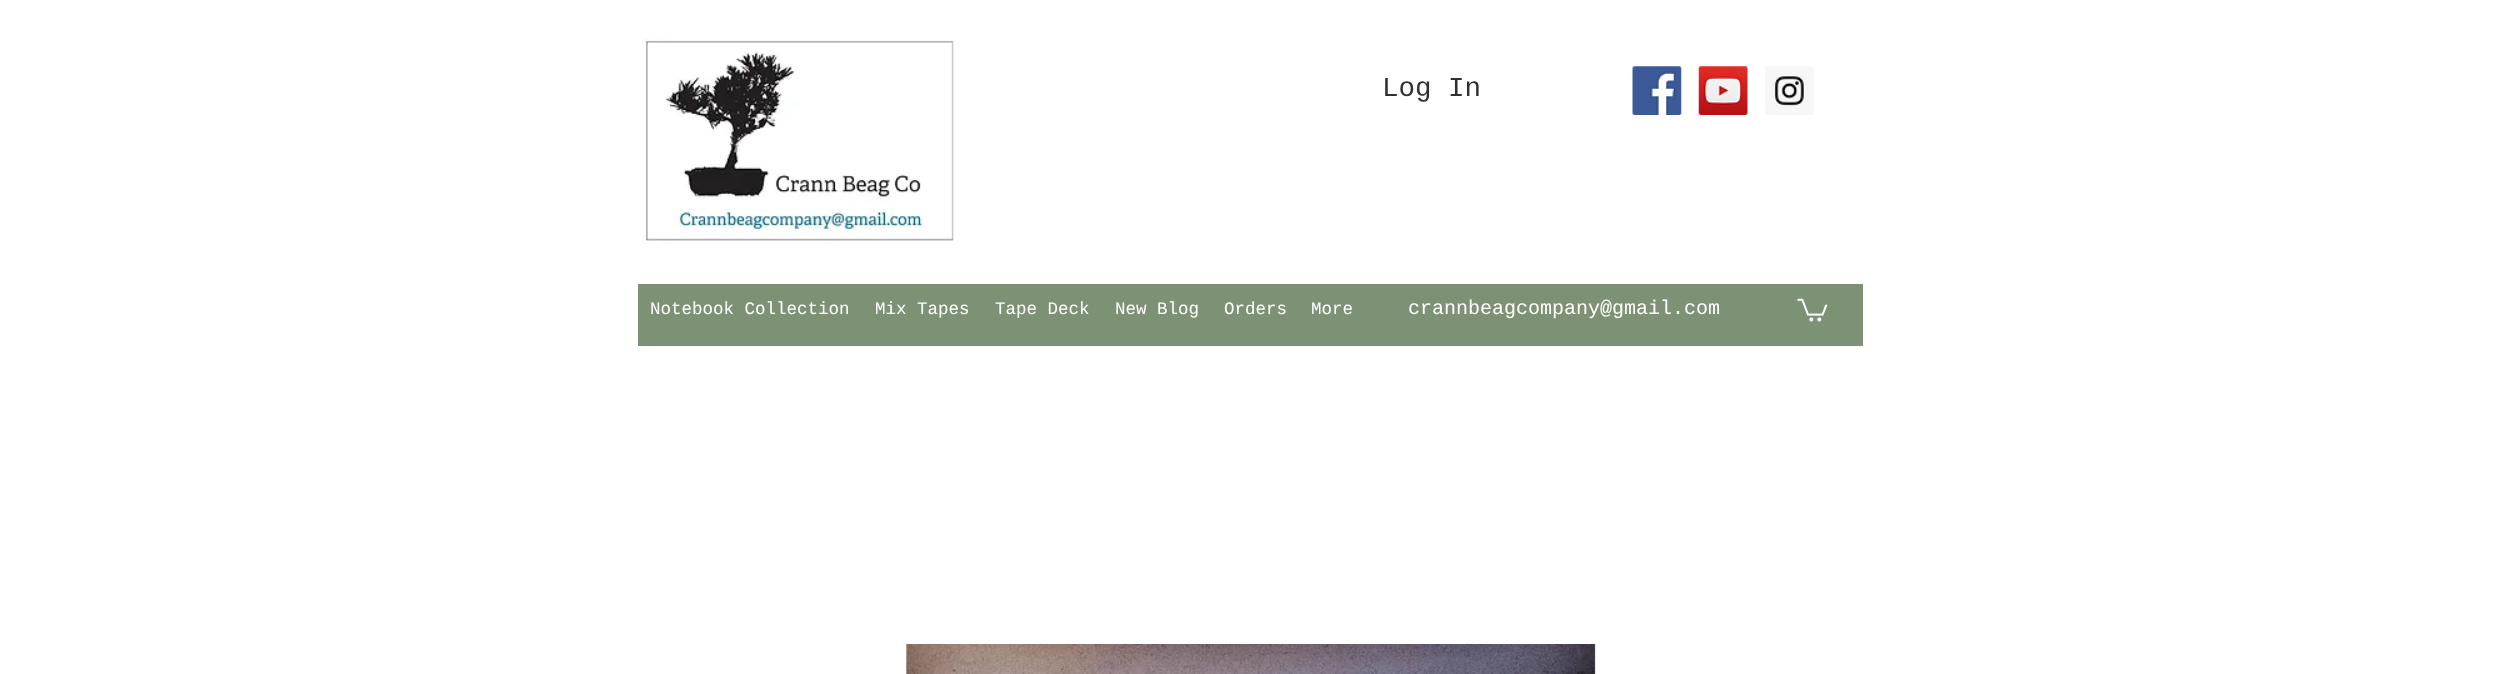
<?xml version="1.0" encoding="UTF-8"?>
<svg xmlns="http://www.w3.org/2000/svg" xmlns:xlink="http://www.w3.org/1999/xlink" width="2499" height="674">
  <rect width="100%" height="100%" fill="#ffffff" />
  <image x="645" y="39" width="309" height="202" xlink:href="image1.png" />
  <image x="1632" y="66" width="50" height="49" xlink:href="image2.png" />
  <image x="1698" y="66" width="50" height="49" xlink:href="image3.png" />
  <image x="1765" y="66" width="49" height="49" xlink:href="image4.png" />
  <rect x="638" y="284" width="1225" height="62" fill="#7d9174" />
  <image x="1797" y="298" width="31" height="24" xlink:href="image5.png" />
  <image x="906" y="644" width="690" height="30" xlink:href="image6.png" />
  <text x="1382" y="96" style="font-family: Liberation Mono; font-size: 27.5px; fill: #303030">Log In</text>
  <text x="650" y="314" style="font-family: Liberation Mono; font-size: 17.5px; fill: #ffffff">Notebook Collection</text>
  <text x="875" y="314" style="font-family: Liberation Mono; font-size: 17.5px; fill: #ffffff">Mix Tapes</text>
  <text x="995" y="314" style="font-family: Liberation Mono; font-size: 17.5px; fill: #ffffff">Tape Deck</text>
  <text x="1115" y="314" style="font-family: Liberation Mono; font-size: 17.5px; fill: #ffffff">New Blog</text>
  <text x="1224" y="314" style="font-family: Liberation Mono; font-size: 17.5px; fill: #ffffff">Orders</text>
  <text x="1311" y="314" style="font-family: Liberation Mono; font-size: 17.5px; fill: #ffffff">More</text>
  <text x="1408" y="314" style="font-family: Liberation Mono; font-size: 20px; fill: #ffffff">crannbeagcompany@gmail.com</text>
</svg>
